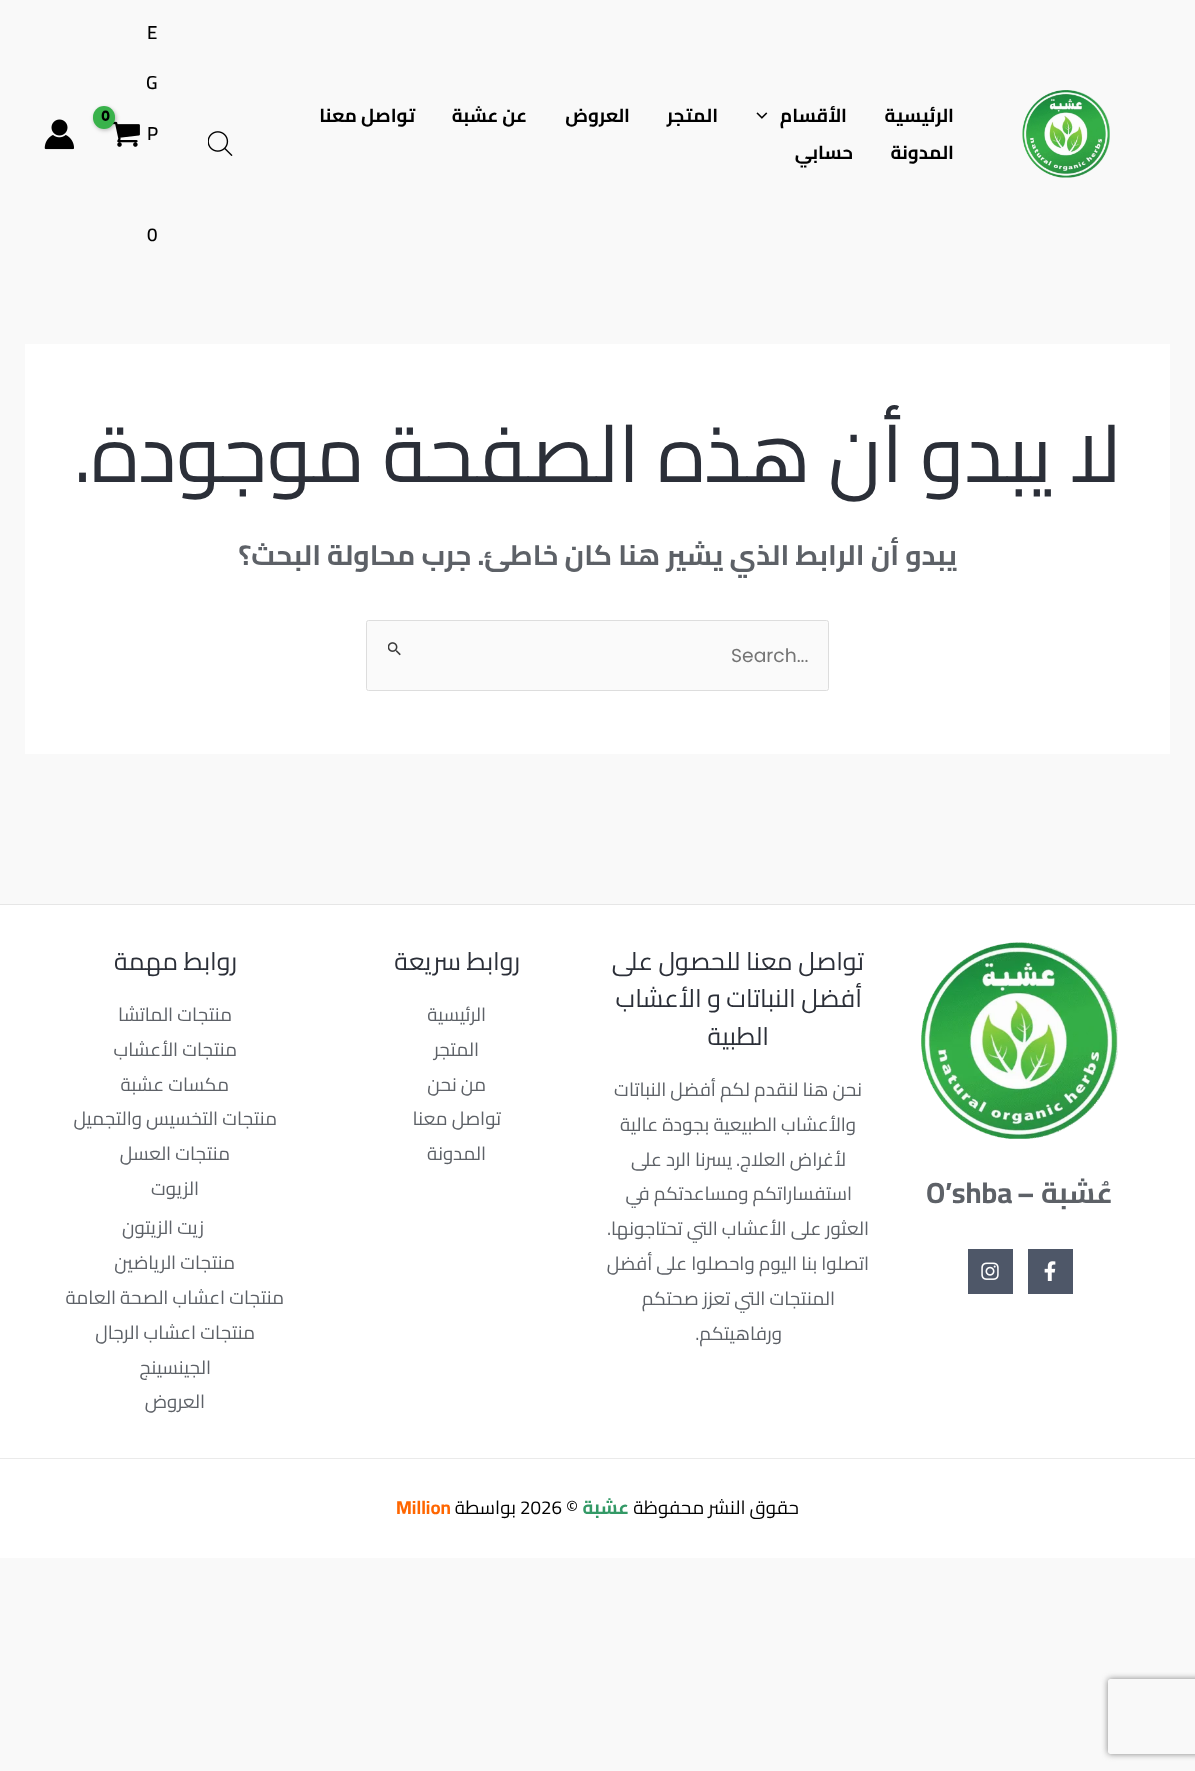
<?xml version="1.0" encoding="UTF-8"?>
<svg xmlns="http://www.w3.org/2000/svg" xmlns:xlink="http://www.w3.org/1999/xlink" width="1195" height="1771">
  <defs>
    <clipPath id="clip1"><path d="M 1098 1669 h 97 v 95 h -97 z m 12.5 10 h 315 c 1.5 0 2.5 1 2.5 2.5 v 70 c 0 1.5 -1 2.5 -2.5 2.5 h -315 c -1.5 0 -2.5 -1 -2.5 -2.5 v -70 c 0 -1.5 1 -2.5 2.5 -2.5 z" clip-rule="evenodd" /></clipPath>
  </defs>
  <rect width="100%" height="100%" fill="#f9f9f9" />
  <image x="1022" y="90" width="88" height="88" xlink:href="image1.png" />
  <image x="756" y="112" width="12" height="7" xlink:href="image2.png" />
  <image x="208" y="131" width="25" height="25" xlink:href="image3.png" />
  <image x="112" y="121" width="28" height="26" xlink:href="image4.png" />
  <rect x="94" y="108" width="22" height="22" rx="11" fill="#000000" fill-opacity="0.3" filter="blur(2px)" />
  <rect x="93" y="106" width="22" height="23" rx="11" fill="#39b24b" />
  <image x="44" y="119" width="30" height="31" xlink:href="image5.png" />
  <rect x="25" y="344" width="1145" height="410" fill="#ffffff" />
  <rect x="366.5" y="620.5" width="462" height="70" rx="2" fill="#fafafa" stroke="#dddddd" />
  <image x="388" y="642" width="13" height="14" xlink:href="image6.png" />
  <rect y="905" width="1195" height="653" fill="#ffffff" />
  <rect y="904" width="1195" height="1" fill="#e6e6e6" />
  <image x="921" y="942" width="197" height="197" xlink:href="image7.png" />
  <rect x="1028" y="1249" width="45" height="45" fill="#4e5768" />
  <image x="1044" y="1261" width="12" height="20" xlink:href="image8.png" />
  <rect x="968" y="1249" width="45" height="45" fill="#4e5768" />
  <image x="981" y="1262" width="18" height="18" xlink:href="image9.png" />
  <rect y="1458" width="1195" height="1" fill="#eaeaea" />
  <g clip-path="url(#clip1)">
    <rect x="1108" y="1679" width="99" height="75" rx="2.5" fill="#808080" filter="blur(3px)" />
  </g>
  <text x="954" y="122" style="font-family: Cairo; font-size: 18.75px; font-weight: bold; direction: rtl; fill: #000000">الرئيسية</text>
  <text x="847" y="122" style="font-family: Cairo; font-size: 18.75px; font-weight: bold; direction: rtl; fill: #000000">الأقسام</text>
  <text x="718" y="122" style="font-family: Cairo; font-size: 18.75px; font-weight: bold; direction: rtl; fill: #000000">المتجر</text>
  <text x="630" y="122" style="font-family: Cairo; font-size: 18.75px; font-weight: bold; direction: rtl; fill: #000000">العروض</text>
  <text x="527" y="122" style="font-family: Cairo; font-size: 18.75px; font-weight: bold; direction: rtl; fill: #000000">عن عشبة</text>
  <text x="415" y="122" style="font-family: Cairo; font-size: 18.75px; font-weight: bold; direction: rtl; fill: #000000">تواصل معنا</text>
  <text x="954" y="159" style="font-family: Cairo; font-size: 18.75px; font-weight: bold; direction: rtl; fill: #000000">المدونة</text>
  <text x="853" y="159" style="font-family: Cairo; font-size: 18.75px; font-weight: bold; direction: rtl; fill: #000000">حسابي</text>
  <text x="147" y="39" style="font-family: Cairo; font-size: 18.75px; font-weight: 600; fill: #000000">E</text>
  <text x="146" y="89" style="font-family: Cairo; font-size: 18.75px; font-weight: 600; fill: #000000">G</text>
  <text x="147" y="140" style="font-family: Cairo; font-size: 18.75px; font-weight: 600; fill: #000000">P</text>
  <text x="147" y="241" style="font-family: Cairo; font-size: 18.75px; font-weight: 600; fill: #000000">0</text>
  <text x="101" y="121" style="font-family: Poppins; font-size: 14px; font-weight: bold; letter-spacing: -1px; fill: #000000">0</text>
  <text x="1121" y="482" style="font-family: Cairo; font-size: 80px; direction: rtl; fill: #2b2f38">لا يبدو أن هذه الصفحة موجودة.</text>
  <text x="957" y="565" style="font-family: Cairo; font-size: 28.1px; font-weight: bold; direction: rtl; fill: #5d6167">يبدو أن الرابط الذي يشير هنا كان خاطئ. جرب محاولة البحث؟</text>
  <text x="731" y="662" style="font-family: Poppins; font-size: 18.75px; fill: #757575">Search...</text>
  <text x="1113" y="1203" style="font-family: Cairo; font-size: 29px; font-weight: bold; direction: rtl; fill: #5d6167">عُشبة –</text>
  <text x="926" y="1203" style="font-family: Cairo; font-size: 29px; font-weight: bold; fill: #5d6167">O’shba</text>
  <text x="864" y="970" style="font-family: Cairo; font-size: 25px; direction: rtl; fill: #2b2f38">تواصل معنا للحصول على</text>
  <text x="862" y="1007" style="font-family: Cairo; font-size: 25px; direction: rtl; fill: #2b2f38">أفضل النباتات و الأعشاب</text>
  <text x="769" y="1045" style="font-family: Cairo; font-size: 25px; direction: rtl; fill: #2b2f38">الطبية</text>
  <text x="862" y="1096" style="font-family: Cairo; font-size: 18.75px; direction: rtl; fill: #5d6167">نحن هنا لنقدم لكم أفضل النباتات</text>
  <text x="856" y="1131" style="font-family: Cairo; font-size: 18.75px; direction: rtl; fill: #5d6167">والأعشاب الطبيعية بجودة عالية</text>
  <text x="846" y="1166" style="font-family: Cairo; font-size: 18.75px; direction: rtl; fill: #5d6167">لأغراض العلاج. يسرنا الرد على</text>
  <text x="852" y="1200" style="font-family: Cairo; font-size: 18.75px; direction: rtl; fill: #5d6167">استفساراتكم ومساعدتكم في</text>
  <text x="869" y="1235" style="font-family: Cairo; font-size: 18.75px; direction: rtl; fill: #5d6167">العثور على الأعشاب التي تحتاجونها.</text>
  <text x="869" y="1270" style="font-family: Cairo; font-size: 18.75px; direction: rtl; fill: #5d6167">اتصلوا بنا اليوم واحصلوا على أفضل</text>
  <text x="835" y="1305" style="font-family: Cairo; font-size: 18.75px; direction: rtl; fill: #5d6167">المنتجات التي تعزز صحتكم</text>
  <text x="782" y="1340" style="font-family: Cairo; font-size: 18.75px; direction: rtl; fill: #5d6167">ورفاهيتكم.</text>
  <text x="520" y="970" style="font-family: Cairo; font-size: 25px; direction: rtl; fill: #2b2f38">روابط سريعة</text>
  <text x="486" y="1021" style="font-family: Cairo; font-size: 18.75px; direction: rtl; fill: #5d6167">الرئيسية</text>
  <text x="479" y="1056" style="font-family: Cairo; font-size: 18.75px; direction: rtl; fill: #5d6167">المتجر</text>
  <text x="486" y="1091" style="font-family: Cairo; font-size: 18.75px; direction: rtl; fill: #5d6167">من نحن</text>
  <text x="501" y="1125" style="font-family: Cairo; font-size: 18.75px; direction: rtl; fill: #5d6167">تواصل معنا</text>
  <text x="486" y="1160" style="font-family: Cairo; font-size: 18.75px; direction: rtl; fill: #5d6167">المدونة</text>
  <text x="237" y="970" style="font-family: Cairo; font-size: 25px; direction: rtl; fill: #2b2f38">روابط مهمة</text>
  <text x="232" y="1021" style="font-family: Cairo; font-size: 18.75px; direction: rtl; fill: #5d6167">منتجات الماتشا</text>
  <text x="237" y="1056" style="font-family: Cairo; font-size: 18.75px; direction: rtl; fill: #5d6167">منتجات الأعشاب</text>
  <text x="229" y="1091" style="font-family: Cairo; font-size: 18.75px; direction: rtl; fill: #5d6167">مكسات عشبة</text>
  <text x="277" y="1125" style="font-family: Cairo; font-size: 18.75px; direction: rtl; fill: #5d6167">منتجات التخسيس والتجميل</text>
  <text x="230" y="1160" style="font-family: Cairo; font-size: 18.75px; direction: rtl; fill: #5d6167">منتجات العسل</text>
  <text x="199" y="1195" style="font-family: Cairo; font-size: 18.75px; direction: rtl; fill: #5d6167">الزيوت</text>
  <text x="204" y="1234" style="font-family: Cairo; font-size: 18.75px; direction: rtl; fill: #5d6167">زيت الزيتون</text>
  <text x="235" y="1269" style="font-family: Cairo; font-size: 18.75px; direction: rtl; fill: #5d6167">منتجات الرياضين</text>
  <text x="284" y="1304" style="font-family: Cairo; font-size: 18.75px; direction: rtl; fill: #5d6167">منتجات اعشاب الصحة العامة</text>
  <text x="255" y="1339" style="font-family: Cairo; font-size: 18.75px; direction: rtl; fill: #5d6167">منتجات اعشاب الرجال</text>
  <text x="211" y="1374" style="font-family: Cairo; font-size: 18.75px; direction: rtl; fill: #5d6167">الجينسينج</text>
  <text x="205" y="1408" style="font-family: Cairo; font-size: 18.75px; direction: rtl; fill: #5d6167">العروض</text>
  <text x="799" y="1514" style="font-family: Cairo; font-size: 18.75px; direction: rtl; fill: #000000">حقوق النشر محفوظة</text>
  <text x="629" y="1514" style="font-family: Cairo; font-size: 18.75px; font-weight: bold; direction: rtl; fill: #339966">عشبة</text>
  <text x="520" y="1514" style="font-family: Cairo; font-size: 18.75px; fill: #000000">2026 ©</text>
  <text x="516" y="1514" style="font-family: Cairo; font-size: 18.75px; direction: rtl; fill: #000000">بواسطة</text>
  <text x="396" y="1514" style="font-family: Cairo; font-size: 18.75px; font-weight: bold; fill: #ff6600">Million</text>
</svg>
